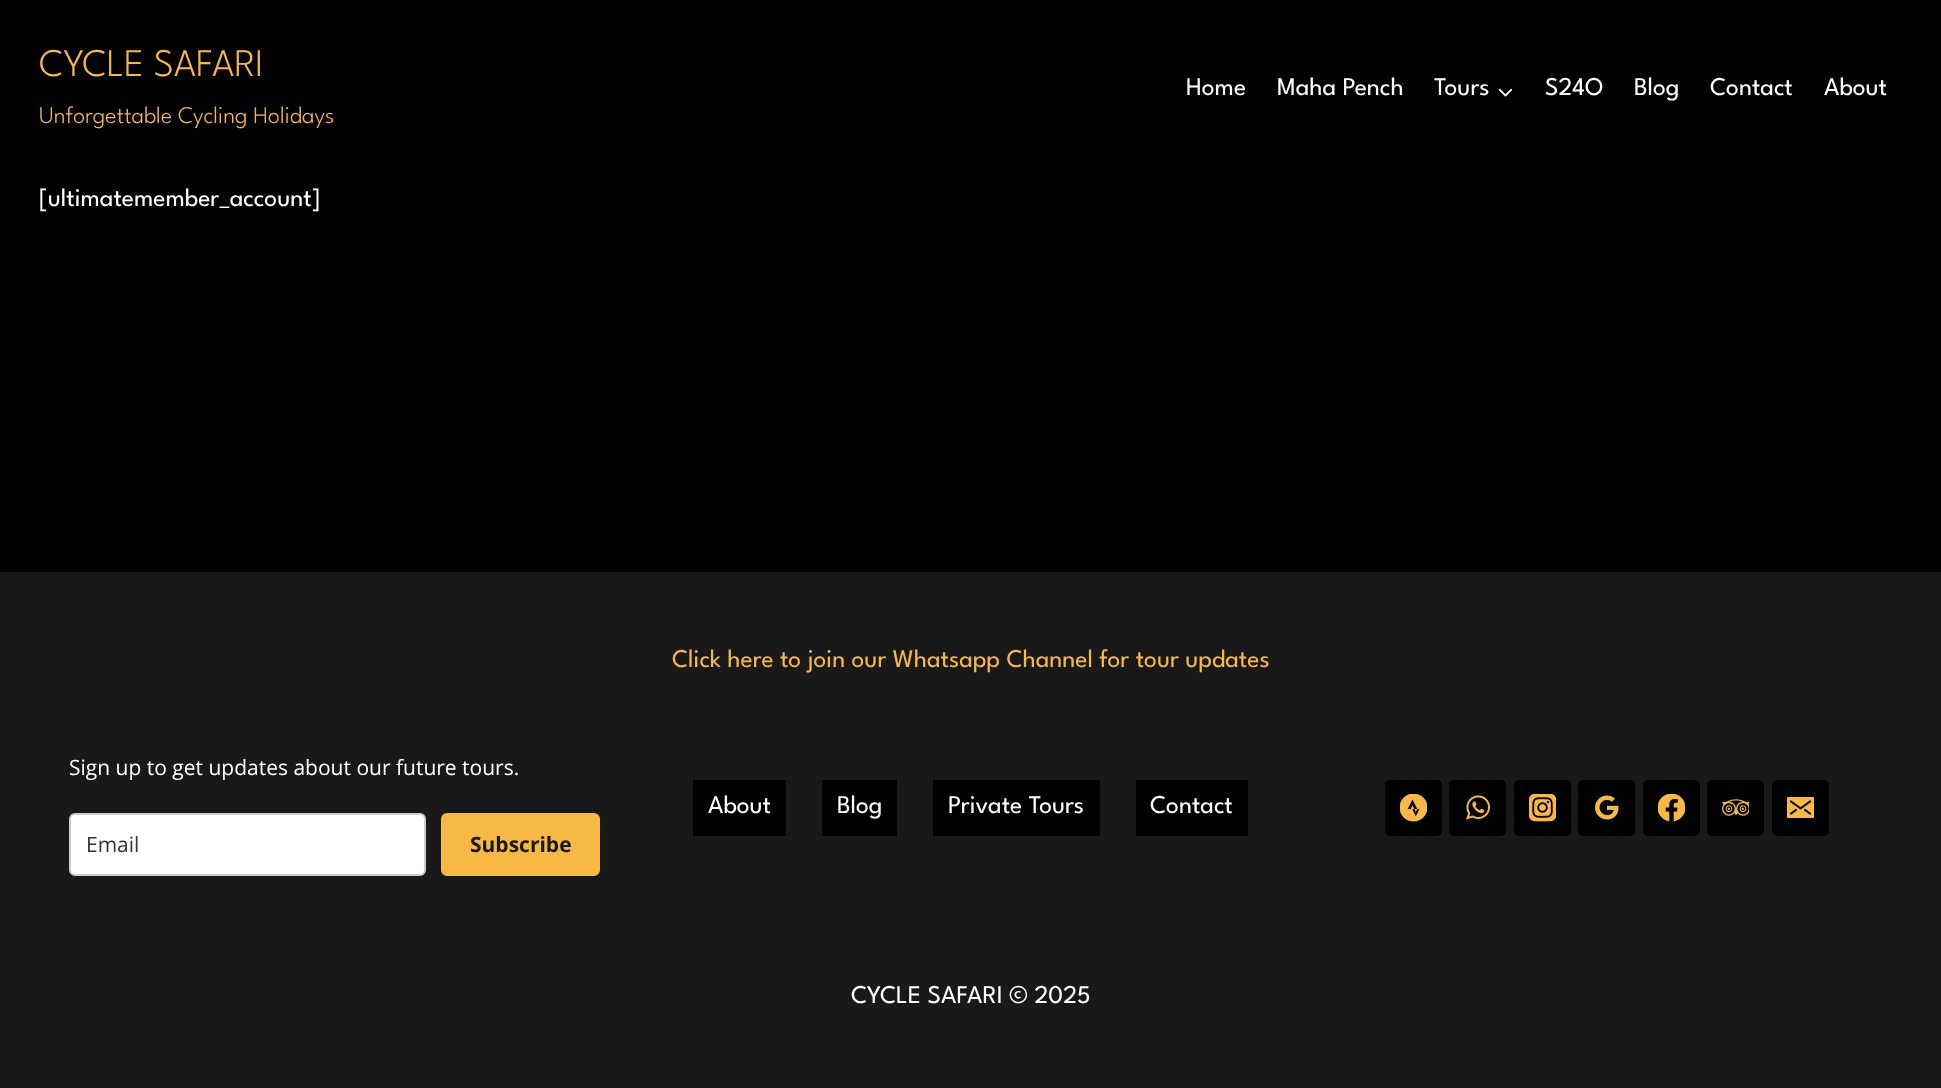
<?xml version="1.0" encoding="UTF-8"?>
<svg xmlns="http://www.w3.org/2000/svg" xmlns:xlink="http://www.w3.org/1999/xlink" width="1941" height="1088">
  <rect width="100%" height="100%" fill="#000000" />
  <image x="1498" y="88" width="15" height="9" xlink:href="image1.png" />
  <rect y="572" width="1941" height="516" fill="#191919" />
  <rect x="70" y="814" width="355" height="61" rx="5" fill="#ffffff" stroke="#cccccc" stroke-width="2" />
  <rect x="442" y="814" width="157" height="61" rx="5" fill="#f7b944" stroke="#f7b944" stroke-width="2" />
  <rect x="693" y="780" width="93" height="56" fill="#020000" />
  <rect x="822" y="780" width="75" height="56" fill="#020000" />
  <rect x="933" y="780" width="167" height="56" fill="#020000" />
  <rect x="1136" y="780" width="112" height="56" fill="#020000" />
  <rect x="1385" y="780" width="57" height="56" rx="5" fill="#000000" />
  <image x="1400" y="794" width="27" height="28" xlink:href="image2.png" />
  <rect x="1449" y="780" width="57" height="56" rx="5" fill="#000000" />
  <image x="1466" y="795" width="24" height="25" xlink:href="image3.png" />
  <rect x="1514" y="780" width="57" height="56" rx="5" fill="#000000" />
  <image x="1529" y="794" width="27" height="28" xlink:href="image4.png" />
  <rect x="1578" y="780" width="57" height="56" rx="5" fill="#000000" />
  <image x="1595" y="795" width="24" height="25" xlink:href="image5.png" />
  <rect x="1643" y="780" width="57" height="56" rx="5" fill="#000000" />
  <image x="1658" y="794" width="27" height="28" xlink:href="image6.png" />
  <rect x="1707" y="780" width="57" height="56" rx="5" fill="#000000" />
  <image x="1722" y="799" width="27" height="17" xlink:href="image7.png" />
  <rect x="1772" y="780" width="57" height="56" rx="5" fill="#000000" />
  <image x="1787" y="797" width="27" height="21" xlink:href="image8.png" />
  <text x="39" y="76" style="font-family: League Spartan; font-size: 39px; font-weight: 300; fill: #f7b944">CYCLE SAFARI</text>
  <text x="39" y="123" style="font-family: League Spartan; font-size: 24px; font-weight: 300; fill: #f7b944">Unforgettable Cycling Holidays</text>
  <text x="1186" y="95" style="font-family: League Spartan; font-size: 25.5px; fill: #ffffff">Home</text>
  <text x="1277" y="95" style="font-family: League Spartan; font-size: 25.5px; fill: #ffffff">Maha Pench</text>
  <text x="1434" y="95" style="font-family: League Spartan; font-size: 25.5px; fill: #ffffff">Tours</text>
  <text x="1545" y="95" style="font-family: League Spartan; font-size: 25.5px; fill: #ffffff">S24O</text>
  <text x="1634" y="95" style="font-family: League Spartan; font-size: 25.5px; fill: #ffffff">Blog</text>
  <text x="1710" y="95" style="font-family: League Spartan; font-size: 25.5px; fill: #ffffff">Contact</text>
  <text x="1824" y="95" style="font-family: League Spartan; font-size: 25.5px; fill: #ffffff">About</text>
  <text x="39" y="206" style="font-family: League Spartan; font-size: 25.5px; fill: #ffffff">[ultimatemember_account]</text>
  <text x="672" y="667" style="font-family: League Spartan; font-size: 25.5px; fill: #f7b944">Click here to join our Whatsapp Channel for tour updates</text>
  <text x="69" y="775" style="font-family: Open Sans; font-size: 21px; fill: #ffffff">Sign up to get updates about our future tours.</text>
  <text x="86" y="852" style="font-family: Open Sans; font-size: 21px; fill: #333333">Email</text>
  <text x="470" y="852" style="font-family: Open Sans; font-size: 21px; font-weight: bold; fill: #191919">Subscribe</text>
  <text x="708" y="813" style="font-family: League Spartan; font-size: 25.5px; fill: #ffffff">About</text>
  <text x="837" y="813" style="font-family: League Spartan; font-size: 25.5px; fill: #ffffff">Blog</text>
  <text x="948" y="813" style="font-family: League Spartan; font-size: 25.5px; fill: #ffffff">Private Tours</text>
  <text x="1150" y="813" style="font-family: League Spartan; font-size: 25.5px; fill: #ffffff">Contact</text>
  <text x="851" y="1003" style="font-family: League Spartan; font-size: 25.5px; fill: #ffffff">CYCLE SAFARI © 2025</text>
</svg>
